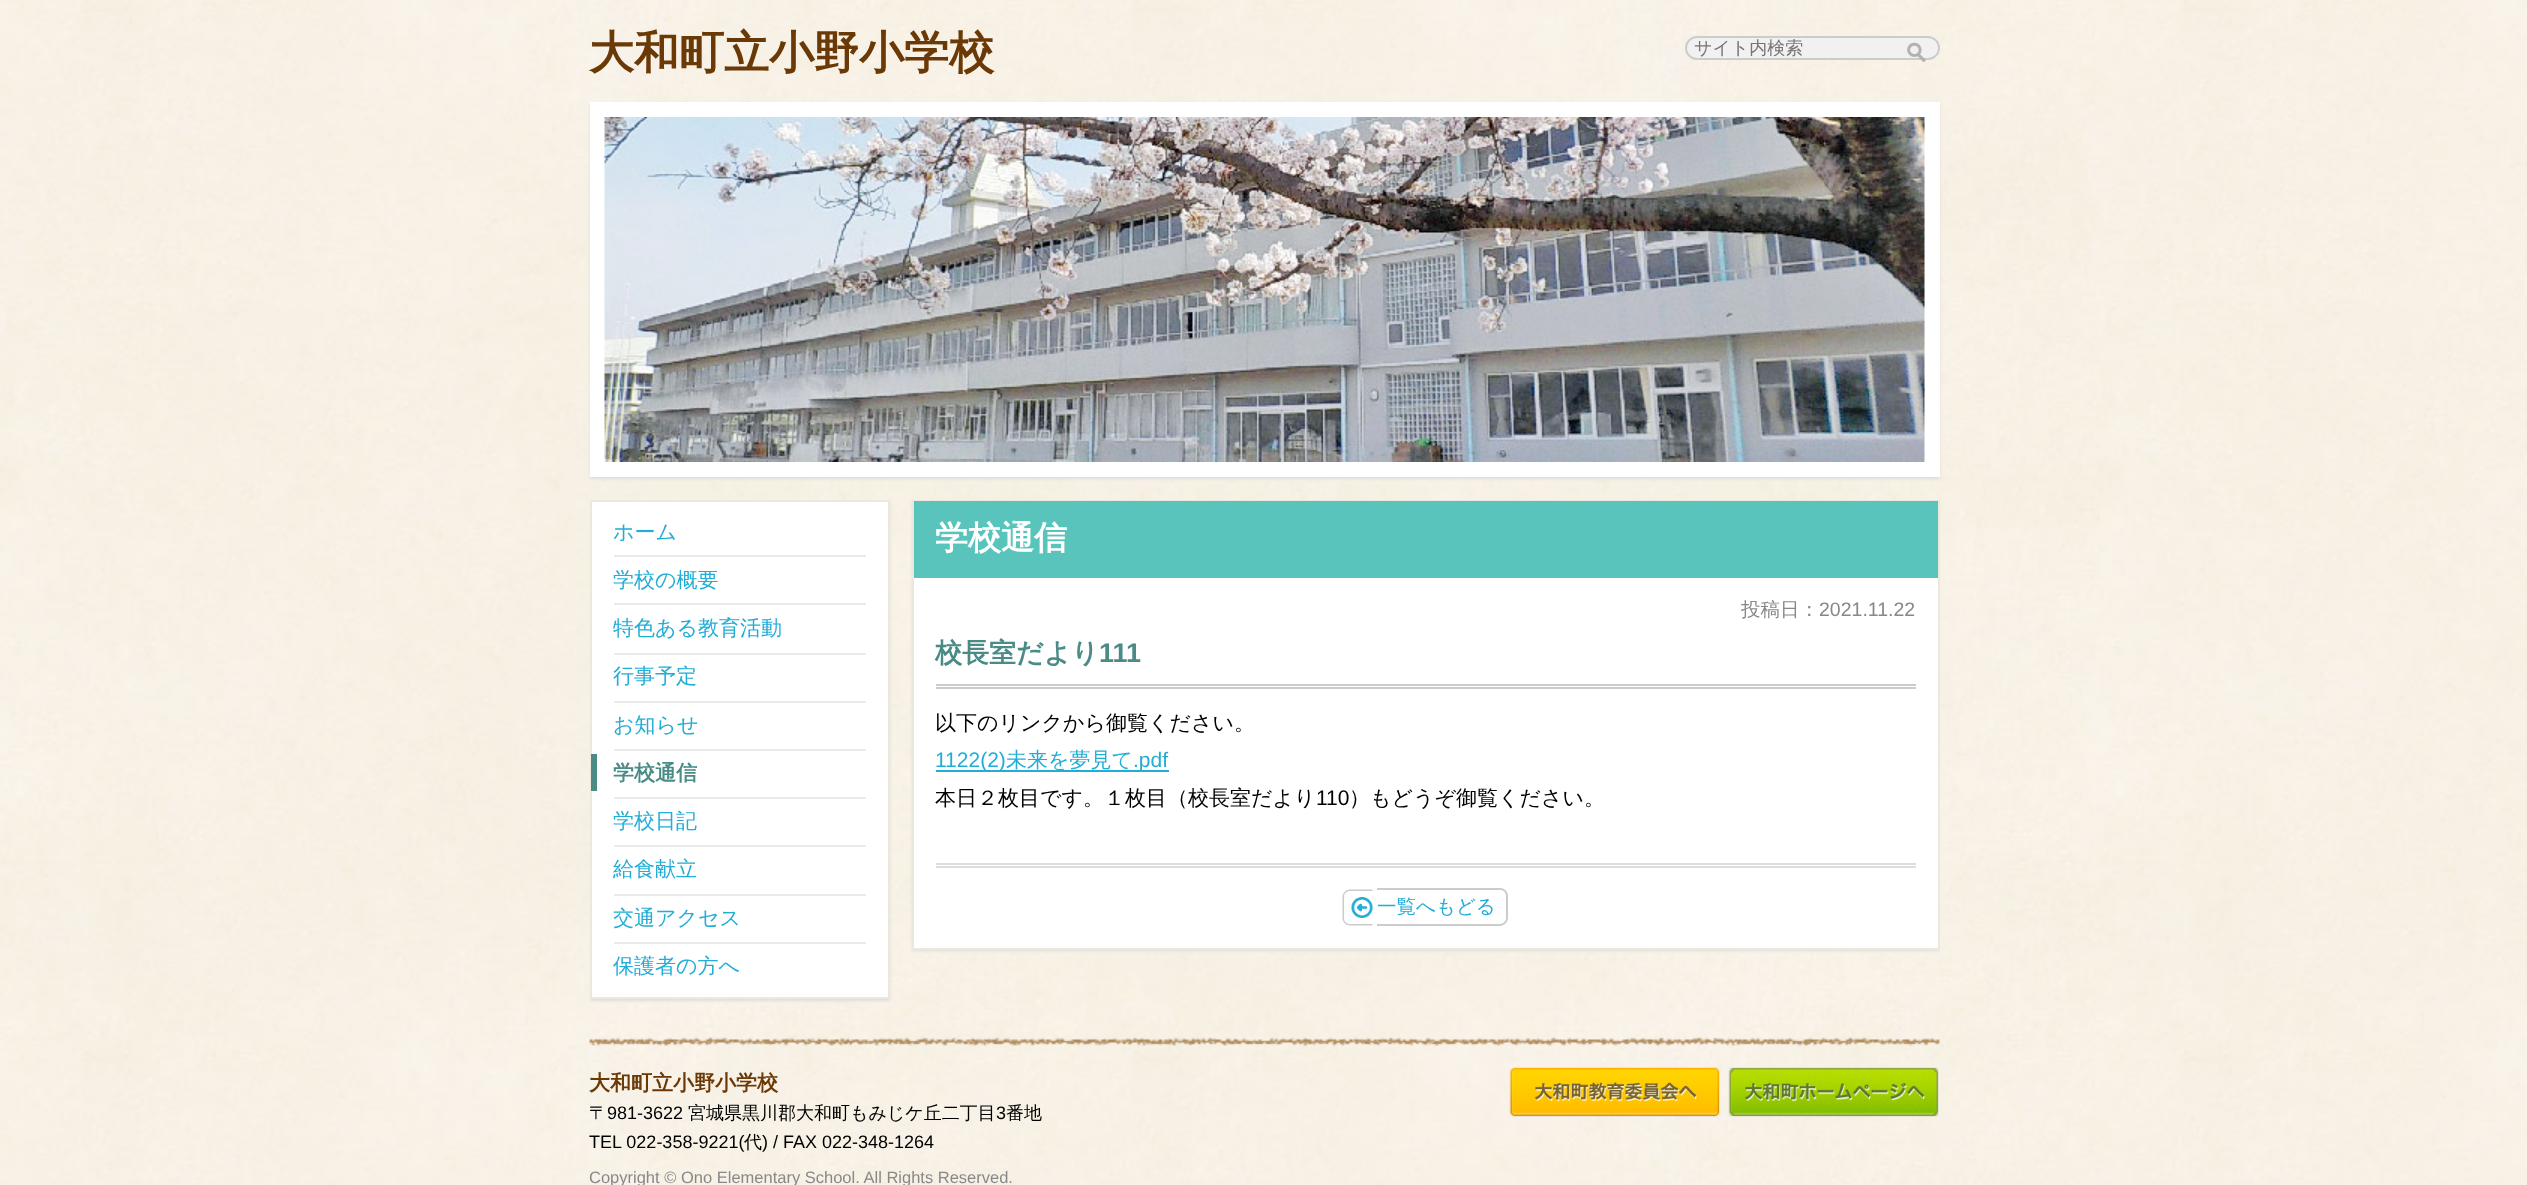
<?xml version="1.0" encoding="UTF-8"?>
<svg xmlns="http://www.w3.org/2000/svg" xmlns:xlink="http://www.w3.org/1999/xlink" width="2527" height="1185">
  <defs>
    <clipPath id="clip1"><rect x="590" y="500" width="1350" height="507" /></clipPath>
  </defs>
  <rect width="100%" height="100%" fill="#ffffff" />
  <image x="0" y="0" width="2527" height="1185" xlink:href="image1.png" />
  <rect x="1686" y="37" width="253" height="22" rx="11" fill="#f1f1f1" stroke="#cccccc" stroke-width="2" />
  <image x="1907" y="42" width="19" height="21" xlink:href="image2.png" />
  <rect x="590" y="104" width="1350" height="375" fill="#dddddd" filter="blur(1.5px)" />
  <rect x="590" y="102" width="1350" height="375" fill="#ffffff" />
  <image x="604" y="117" width="1321" height="345" xlink:href="image3.png" />
  <g clip-path="url(#clip1)">
    <rect x="590" y="501" width="300" height="500" fill="#dddddd" filter="blur(1.5px)" />
  </g>
  <rect x="591" y="501" width="298" height="497" fill="#ffffff" stroke="#ede8de" stroke-width="2" />
  <rect x="614" y="555" width="252" height="2" fill="#e9e9e9" />
  <rect x="614" y="603" width="252" height="2" fill="#e9e9e9" />
  <rect x="614" y="653" width="252" height="2" fill="#e9e9e9" />
  <rect x="614" y="701" width="252" height="2" fill="#e9e9e9" />
  <rect x="591" y="754" width="6" height="37" fill="#4a8b86" />
  <rect x="614" y="749" width="252" height="2" fill="#e9e9e9" />
  <rect x="614" y="797" width="252" height="2" fill="#e9e9e9" />
  <rect x="614" y="845" width="252" height="2" fill="#e9e9e9" />
  <rect x="614" y="894" width="252" height="2" fill="#e9e9e9" />
  <rect x="614" y="942" width="252" height="2" fill="#e9e9e9" />
  <g clip-path="url(#clip1)">
    <rect x="912" y="501" width="1028" height="450" fill="#dddddd" filter="blur(1.5px)" />
  </g>
  <rect x="914" y="578" width="1024" height="370" fill="#ffffff" />
  <rect x="913" y="501" width="1026" height="448" fill="none" stroke="#ede8de" stroke-width="2" />
  <rect x="914" y="501" width="1024" height="77" fill="#59c4bc" />
  <rect x="936" y="684" width="980" height="2" fill="#cccccc" />
  <rect x="936" y="687" width="980" height="2" fill="#cccccc" />
  <rect x="936" y="770" width="233" height="2" fill="#22add6" />
  <rect x="936" y="863" width="980" height="2" fill="#dddddd" />
  <rect x="936" y="866" width="980" height="2" fill="#dddddd" />
  <path d="M 1350 889.5 h 22.5 v 36 h -22.5 c -4 0 -7.5 -3.5 -7.5 -7.5 v -21 c 0 -4 3.5 -7.5 7.5 -7.5 z m 0 1.5 h 22.5 v 33 h -22.5 c -3.5 0 -6 -2.5 -6 -6 v -21 c 0 -3.5 2.5 -6 6 -6 z" fill="#cccccc" fill-rule="evenodd" />
  <path d="M 1377 888 h 123 c 4 0 8 3 8 8 v 22 c 0 4 -4 8 -8 8 h -123 z m 0 2 h 123 c 3 0 6 2 6 6 v 22 c 0 3 -3 6 -6 6 h -123 z" fill="#cccccc" fill-rule="evenodd" />
  <image x="1351" y="897" width="22" height="21" xlink:href="image4.png" />
  <image x="589" y="1037" width="1351" height="9" xlink:href="image5.png" />
  <image x="1509" y="1067" width="211" height="50" xlink:href="image6.png" />
  <image x="1728" y="1067" width="211" height="50" xlink:href="image7.png" />
  <text x="589" y="68" style="font-family: WenQuanYi Zen Hei; font-size: 45px; font-weight: bold; fill: #6a3906">大和町立小野小学校</text>
  <text x="1694" y="54" style="font-family: WenQuanYi Zen Hei; font-size: 18px; font-weight: 500; fill: #757575">サイト内検索</text>
  <text x="613" y="539" style="font-family: WenQuanYi Zen Hei; font-size: 21px; font-weight: 500; fill: #22add6">ホーム</text>
  <text x="613" y="587" style="font-family: WenQuanYi Zen Hei; font-size: 21px; font-weight: 500; fill: #22add6">学校の概要</text>
  <text x="613" y="635" style="font-family: WenQuanYi Zen Hei; font-size: 21px; font-weight: 500; fill: #22add6">特色ある教育活動</text>
  <text x="613" y="683" style="font-family: WenQuanYi Zen Hei; font-size: 21px; font-weight: 500; fill: #22add6">行事予定</text>
  <text x="613" y="732" style="font-family: WenQuanYi Zen Hei; font-size: 21px; font-weight: 500; fill: #22add6">お知らせ</text>
  <text x="613" y="780" style="font-family: WenQuanYi Zen Hei; font-size: 21px; font-weight: bold; fill: #4a8b86">学校通信</text>
  <text x="613" y="828" style="font-family: WenQuanYi Zen Hei; font-size: 21px; font-weight: 500; fill: #22add6">学校日記</text>
  <text x="613" y="876" style="font-family: WenQuanYi Zen Hei; font-size: 21px; font-weight: 500; fill: #22add6">給食献立</text>
  <text x="613" y="925" style="font-family: WenQuanYi Zen Hei; font-size: 21px; font-weight: 500; fill: #22add6">交通アクセス</text>
  <text x="613" y="973" style="font-family: WenQuanYi Zen Hei; font-size: 21px; font-weight: 500; fill: #22add6">保護者の方へ</text>
  <text x="935" y="549" style="font-family: WenQuanYi Zen Hei; font-size: 33px; font-weight: bold; fill: #ffffff">学校通信</text>
  <text x="1741" y="616" style="font-family: WenQuanYi Zen Hei; font-size: 19.5px; font-weight: 500; fill: #888888">投稿日：</text>
  <text x="1819" y="616" style="font-family: Liberation Sans; font-size: 19.5px; fill: #888888">2021.11.22</text>
  <text x="935" y="662" style="font-family: WenQuanYi Zen Hei; font-size: 27px; font-weight: bold; fill: #4a8b86">校長室だより</text>
  <text x="1099" y="662" style="font-family: Liberation Sans; font-size: 27px; font-weight: bold; fill: #4a8b86">111</text>
  <text x="935" y="730" style="font-family: WenQuanYi Zen Hei; font-size: 21px; font-weight: 500; fill: #000000">以下のリンクから御覧ください。</text>
  <text x="935" y="767" style="font-family: Liberation Sans; font-size: 21px; fill: #22add6">1122(2)</text>
  <text x="1006" y="767" style="font-family: WenQuanYi Zen Hei; font-size: 21px; font-weight: 500; fill: #22add6">未来を夢見て</text>
  <text x="1133" y="767" style="font-family: Liberation Sans; font-size: 21px; fill: #22add6">.pdf</text>
  <text x="935" y="805" style="font-family: WenQuanYi Zen Hei; font-size: 21px; font-weight: 500; fill: #000000">本日２枚目です。１枚目（校長室だより</text>
  <text x="1316" y="805" style="font-family: Liberation Sans; font-size: 21px; fill: #000000">110</text>
  <text x="1349" y="805" style="font-family: WenQuanYi Zen Hei; font-size: 21px; font-weight: 500; fill: #000000">）もどうぞ御覧ください。</text>
  <text x="1377" y="913" style="font-family: WenQuanYi Zen Hei; font-size: 19.5px; font-weight: 500; fill: #22add6">一覧へもどる</text>
  <text x="589" y="1090" style="font-family: WenQuanYi Zen Hei; font-size: 21px; font-weight: bold; fill: #6a3906">大和町立小野小学校</text>
  <text x="589" y="1119" style="font-family: WenQuanYi Zen Hei; font-size: 18px; font-weight: 500; fill: #000000">〒</text>
  <text x="607" y="1119" style="font-family: Liberation Sans; font-size: 18px; fill: #000000">981-3622</text>
  <text x="688" y="1119" style="font-family: WenQuanYi Zen Hei; font-size: 18px; font-weight: 500; fill: #000000">宮城県黒川郡大和町もみじケ丘二丁目</text>
  <text x="996" y="1119" style="font-family: Liberation Sans; font-size: 18px; fill: #000000">3</text>
  <text x="1006" y="1119" style="font-family: WenQuanYi Zen Hei; font-size: 18px; font-weight: 500; fill: #000000">番地</text>
  <text x="589" y="1148" style="font-family: Liberation Sans; font-size: 18px; fill: #000000">TEL 022-358-9221(</text>
  <text x="744" y="1148" style="font-family: WenQuanYi Zen Hei; font-size: 18px; font-weight: 500; fill: #000000">代</text>
  <text x="762" y="1148" style="font-family: Liberation Sans; font-size: 18px; fill: #000000">) / FAX 022-348-1264</text>
  <text x="589" y="1183" style="font-family: Liberation Sans; font-size: 16.5px; fill: #888888">Copyright © Ono Elementary School. All Rights Reserved.</text>
</svg>
